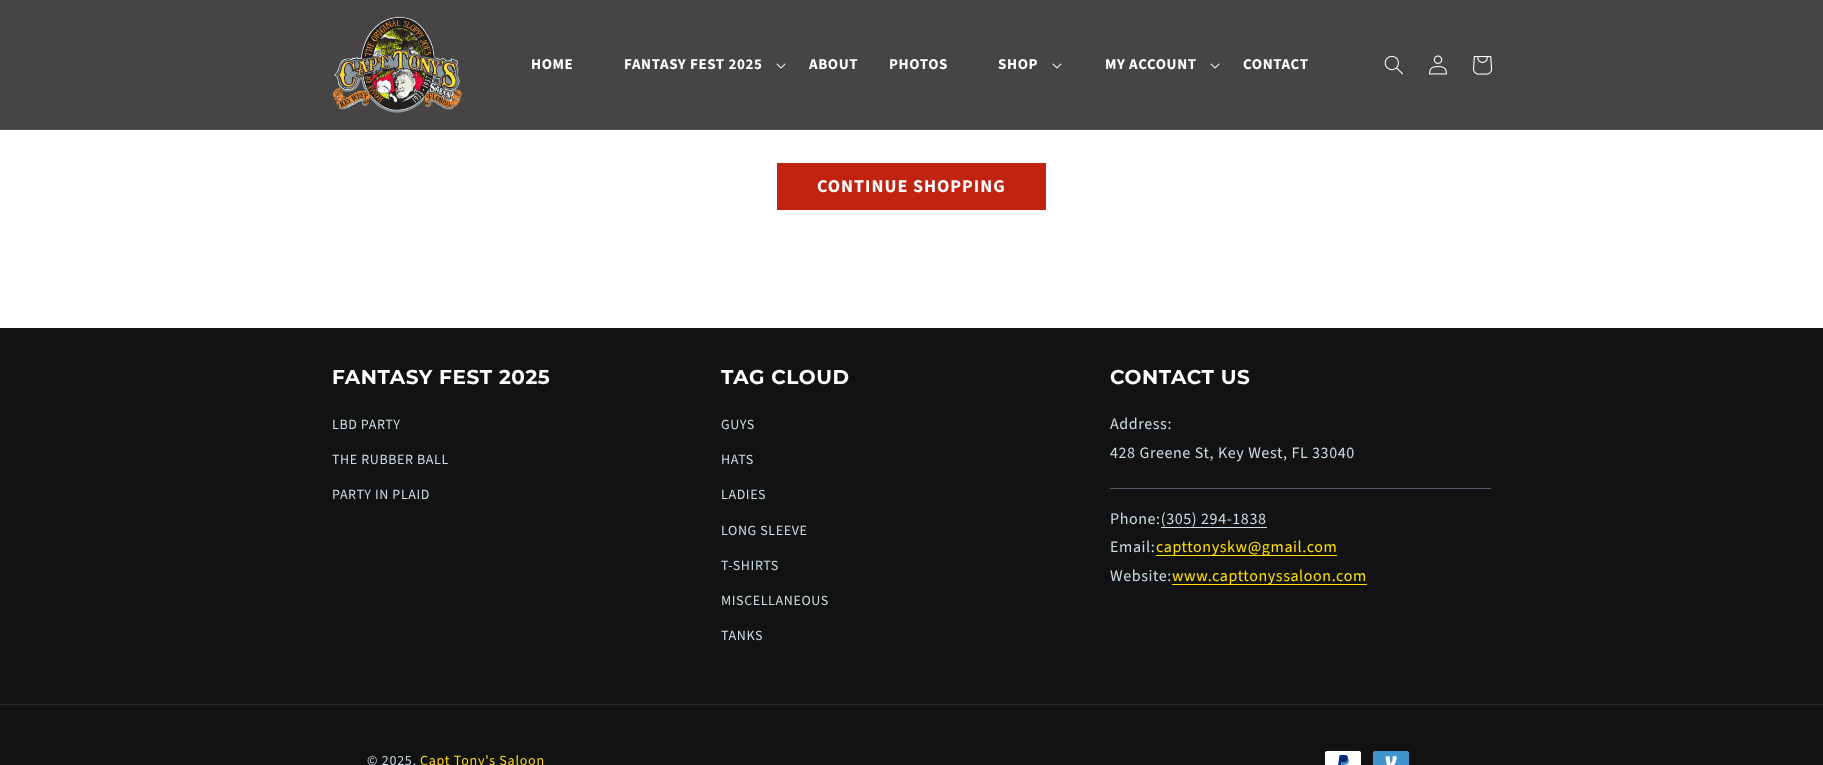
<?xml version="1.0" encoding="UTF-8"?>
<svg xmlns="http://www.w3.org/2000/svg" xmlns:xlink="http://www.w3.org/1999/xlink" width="1823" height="765">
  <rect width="100%" height="100%" fill="#ffffff" />
  <rect width="1823" height="129" fill="#464444" />
  <rect y="129" width="1823" height="1" fill="#555353" />
  <image x="332" y="16" width="130" height="97" xlink:href="image1.png" />
  <image x="776" y="63" width="10" height="6" xlink:href="image2.png" />
  <image x="1052" y="63" width="10" height="6" xlink:href="image2.png" />
  <image x="1210" y="63" width="10" height="6" xlink:href="image2.png" />
  <image x="1384" y="55" width="19" height="20" xlink:href="image3.png" />
  <image x="1429" y="55" width="18" height="20" xlink:href="image4.png" />
  <image x="1473" y="56" width="20" height="19" xlink:href="image5.png" />
  <rect x="777" y="163" width="269" height="47" fill="#c12310" />
  <rect y="328" width="1823" height="437" fill="#121212" />
  <rect x="1110" y="488" width="381" height="1" fill="#58586c" />
  <rect x="1161" y="527" width="106" height="1" fill="#ccdee5" />
  <rect x="1156" y="555" width="181" height="1" fill="#ffe002" />
  <rect x="1172" y="584" width="195" height="1" fill="#ffe002" />
  <rect y="704" width="1823" height="1" fill="#252525" />
  <image x="1325" y="751" width="36" height="14" xlink:href="image6.png" />
  <image x="1373" y="751" width="36" height="14" xlink:href="image7.png" />
  <text x="531" y="69" style="font-family: Source Sans Pro; font-size: 15px; font-weight: bold; letter-spacing: 0.6px; fill: #ffffff">HOME</text>
  <text x="624" y="69" style="font-family: Source Sans Pro; font-size: 15px; font-weight: bold; letter-spacing: 0.6px; fill: #ffffff">FANTASY FEST 2025</text>
  <text x="809" y="69" style="font-family: Source Sans Pro; font-size: 15px; font-weight: bold; letter-spacing: 0.6px; fill: #ffffff">ABOUT</text>
  <text x="889" y="69" style="font-family: Source Sans Pro; font-size: 15px; font-weight: bold; letter-spacing: 0.6px; fill: #ffffff">PHOTOS</text>
  <text x="998" y="69" style="font-family: Source Sans Pro; font-size: 15px; font-weight: bold; letter-spacing: 0.6px; fill: #ffffff">SHOP</text>
  <text x="1105" y="69" style="font-family: Source Sans Pro; font-size: 15px; font-weight: bold; letter-spacing: 0.6px; fill: #ffffff">MY ACCOUNT</text>
  <text x="1243" y="69" style="font-family: Source Sans Pro; font-size: 15px; font-weight: bold; letter-spacing: 0.6px; fill: #ffffff">CONTACT</text>
  <text x="817" y="192" style="font-family: Source Sans Pro; font-size: 18px; font-weight: bold; letter-spacing: 1px; fill: #ffffff">CONTINUE SHOPPING</text>
  <text x="332" y="384" style="font-family: Montserrat; font-size: 20px; font-weight: bold; letter-spacing: 0.6px; fill: #ffffff">FANTASY FEST 2025</text>
  <text x="332" y="429" style="font-family: Source Sans Pro; font-size: 14px; letter-spacing: 0.6px; fill: #ccdee5">LBD PARTY</text>
  <text x="332" y="464" style="font-family: Source Sans Pro; font-size: 14px; letter-spacing: 0.6px; fill: #ccdee5">THE RUBBER BALL</text>
  <text x="332" y="499" style="font-family: Source Sans Pro; font-size: 14px; letter-spacing: 0.6px; fill: #ccdee5">PARTY IN PLAID</text>
  <text x="721" y="384" style="font-family: Montserrat; font-size: 20px; font-weight: bold; letter-spacing: 0.6px; fill: #ffffff">TAG CLOUD</text>
  <text x="721" y="429" style="font-family: Source Sans Pro; font-size: 14px; letter-spacing: 0.6px; fill: #ccdee5">GUYS</text>
  <text x="721" y="464" style="font-family: Source Sans Pro; font-size: 14px; letter-spacing: 0.6px; fill: #ccdee5">HATS</text>
  <text x="721" y="499" style="font-family: Source Sans Pro; font-size: 14px; letter-spacing: 0.6px; fill: #ccdee5">LADIES</text>
  <text x="721" y="535" style="font-family: Source Sans Pro; font-size: 14px; letter-spacing: 0.6px; fill: #ccdee5">LONG SLEEVE</text>
  <text x="721" y="570" style="font-family: Source Sans Pro; font-size: 14px; letter-spacing: 0.6px; fill: #ccdee5">T-SHIRTS</text>
  <text x="721" y="605" style="font-family: Source Sans Pro; font-size: 14px; letter-spacing: 0.6px; fill: #ccdee5">MISCELLANEOUS</text>
  <text x="721" y="640" style="font-family: Source Sans Pro; font-size: 14px; letter-spacing: 0.6px; fill: #ccdee5">TANKS</text>
  <text x="1110" y="384" style="font-family: Montserrat; font-size: 20px; font-weight: bold; letter-spacing: 0.6px; fill: #ffffff">CONTACT US</text>
  <text x="1110" y="429" style="font-family: Source Sans Pro; font-size: 16px; letter-spacing: 0.6px; fill: #ccdee5">Address:</text>
  <text x="1110" y="458" style="font-family: Source Sans Pro; font-size: 16px; letter-spacing: 0.6px; fill: #ccdee5">428 Greene St, Key West, FL 33040</text>
  <text x="1110" y="524" style="font-family: Source Sans Pro; font-size: 16px; letter-spacing: 0.6px; fill: #ccdee5">Phone:(305) 294-1838</text>
  <text x="1110" y="552" style="font-family: Source Sans Pro; font-size: 16px; letter-spacing: 0.6px; fill: #ccdee5">Email:</text>
  <text x="1156" y="552" style="font-family: Source Sans Pro; font-size: 16px; letter-spacing: 0.6px; fill: #ffe002">capttonyskw@gmail.com</text>
  <text x="1110" y="581" style="font-family: Source Sans Pro; font-size: 16px; letter-spacing: 0.6px; fill: #ccdee5">Website:</text>
  <text x="1172" y="581" style="font-family: Source Sans Pro; font-size: 16px; letter-spacing: 0.6px; fill: #ffe002">www.capttonyssaloon.com</text>
  <text x="367" y="765" style="font-family: Source Sans Pro; font-size: 14px; letter-spacing: 0.75px; fill: #ccdee5">© 2025,</text>
  <text x="420" y="765" style="font-family: Source Sans Pro; font-size: 14px; letter-spacing: 0.75px; fill: #ffda22">Capt Tony's Saloon</text>
</svg>
